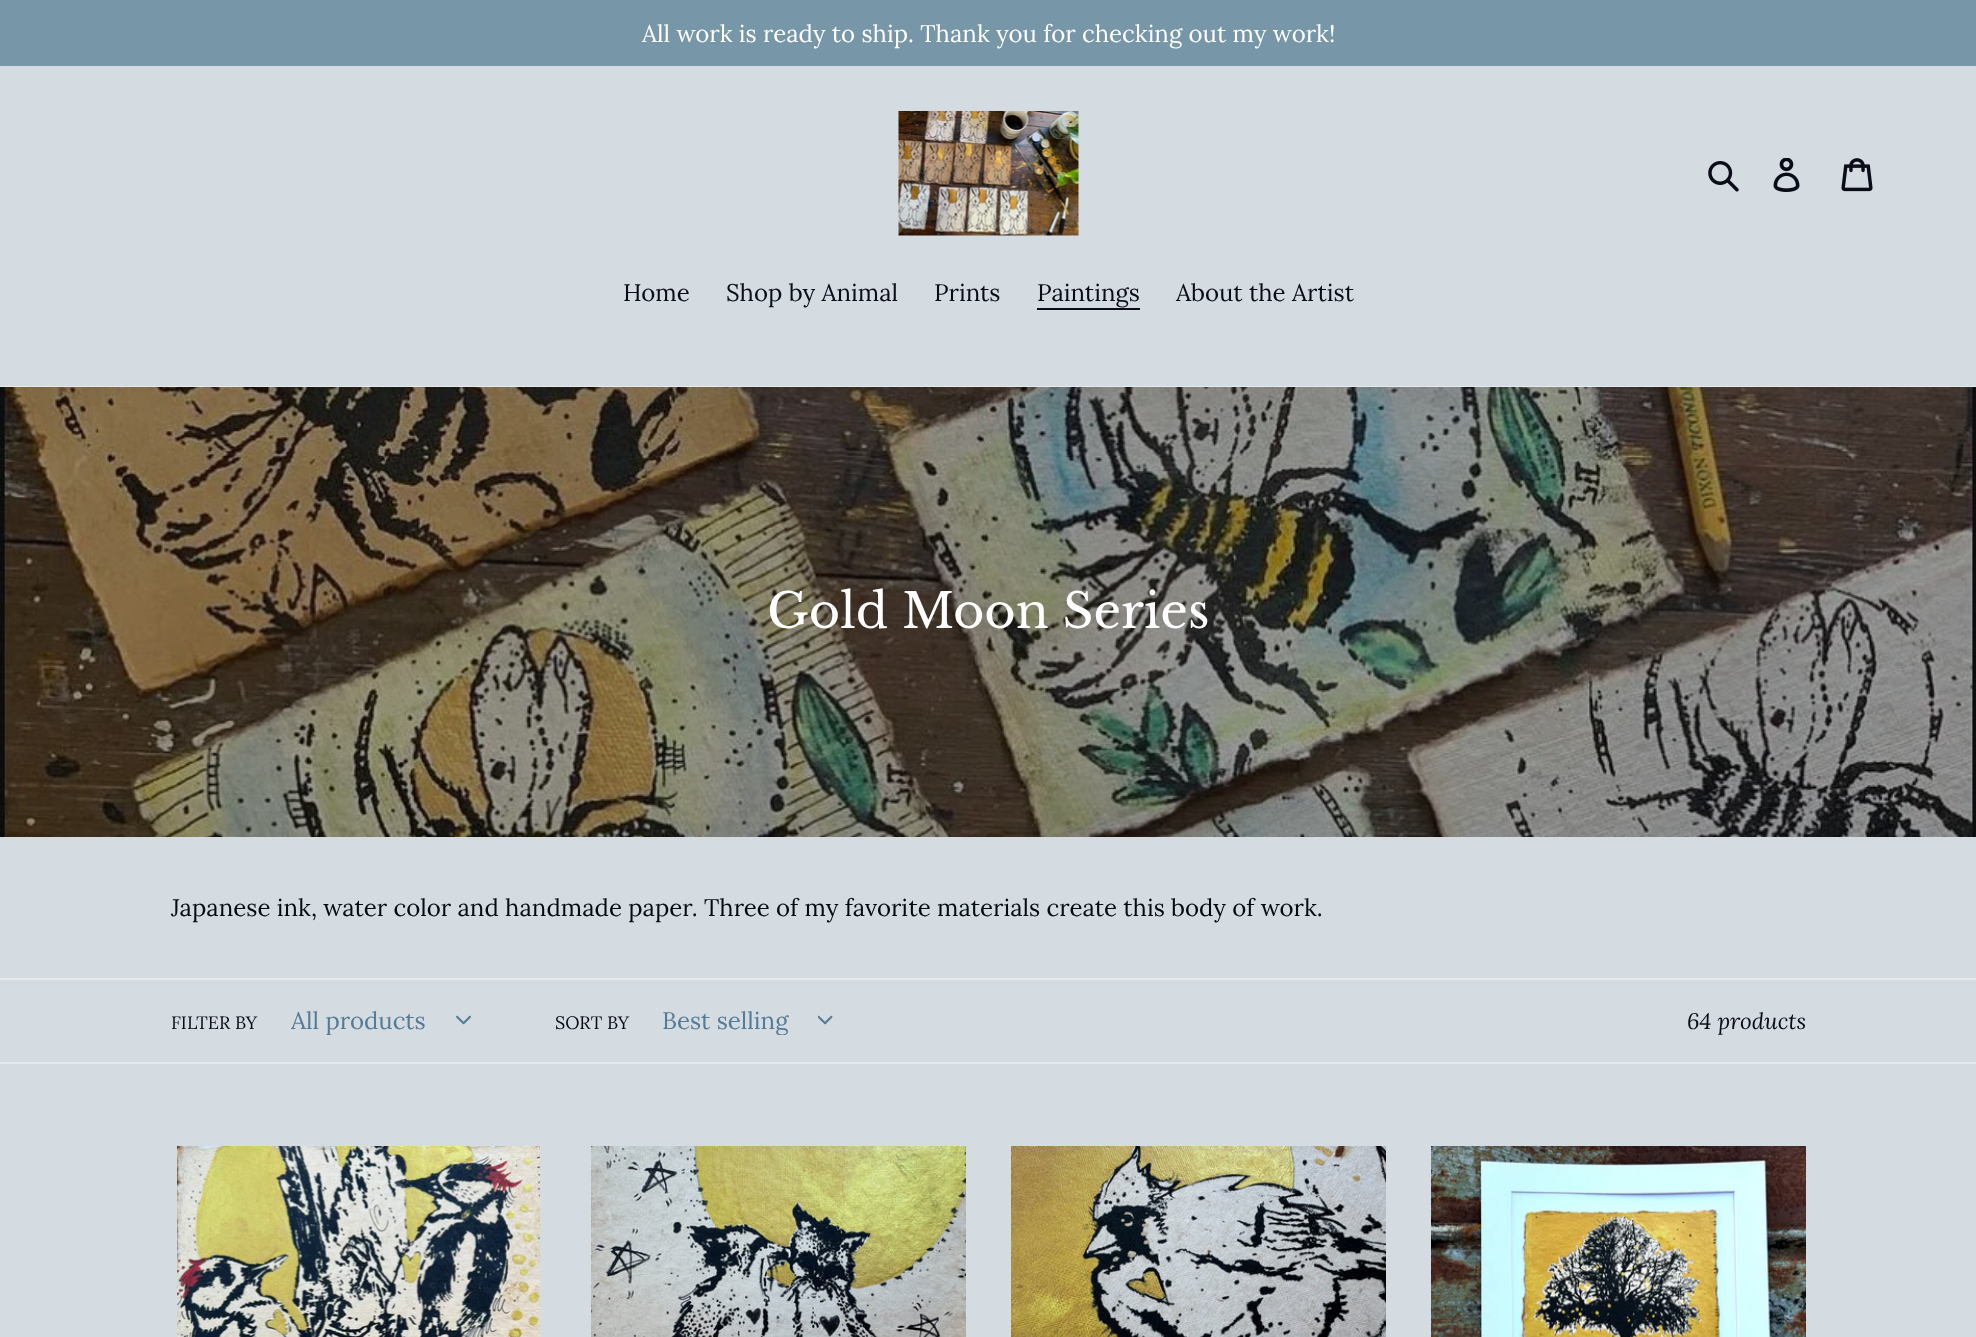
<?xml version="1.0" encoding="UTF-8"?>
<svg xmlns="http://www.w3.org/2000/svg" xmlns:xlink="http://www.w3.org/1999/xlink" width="1976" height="1337">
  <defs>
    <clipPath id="clip1"><rect x="291" y="1007" width="150" height="28" /></clipPath>
    <clipPath id="clip2"><rect x="662" y="1007" width="141" height="28" /></clipPath>
  </defs>
  <rect width="100%" height="100%" fill="#d4dce2" />
  <rect width="1976" height="66" fill="#7796a8" />
  <image x="898" y="111" width="181" height="125" xlink:href="image1.png" />
  <image x="1708" y="161" width="31" height="31" xlink:href="image2.png" />
  <image x="1773" y="158" width="27" height="34" xlink:href="image3.png" />
  <image x="1841" y="158" width="32" height="34" xlink:href="image4.png" />
  <rect y="386" width="1976" height="1" fill="#e8e9eb" />
  <rect x="1037" y="308" width="103" height="2" fill="#0a0c18" />
  <image x="0" y="387" width="1976" height="450" xlink:href="image5.png" />
  <rect y="978" width="1976" height="2" fill="#e8e9eb" />
  <rect y="1062" width="1976" height="2" fill="#e8e9eb" />
  <image x="456" y="1015" width="15" height="10" xlink:href="image6.png" />
  <image x="818" y="1015" width="15" height="10" xlink:href="image7.png" />
  <image x="177" y="1146" width="363" height="191" xlink:href="image8.png" />
  <image x="591" y="1146" width="375" height="191" xlink:href="image9.png" />
  <image x="1011" y="1146" width="375" height="191" xlink:href="image10.png" />
  <image x="1431" y="1146" width="375" height="191" xlink:href="image11.png" />
  <text x="642" y="42" style="font-family: Lora; font-size: 24px; fill: #ffffff">All work is ready to ship. Thank you for checking out my work!</text>
  <text x="623" y="301" style="font-family: Lora; font-size: 24px; fill: #0a0c18">Home</text>
  <text x="726" y="301" style="font-family: Lora; font-size: 24px; fill: #0a0c18">Shop by Animal</text>
  <text x="934" y="301" style="font-family: Lora; font-size: 24px; fill: #0a0c18">Prints</text>
  <text x="1037" y="301" style="font-family: Lora; font-size: 24px; fill: #0a0c18">Paintings</text>
  <text x="1176" y="301" style="font-family: Lora; font-size: 24px; fill: #0a0c18">About the Artist</text>
  <text x="767" y="628" style="font-family: Libre Baskerville; font-size: 48px; fill: #ffffff">Gold Moon Series</text>
  <text x="171" y="916" style="font-family: Lora; font-size: 24px; fill: #040c13">Japanese ink, water color and handmade paper. Three of my favorite materials create this body of work.</text>
  <text x="171" y="1029" style="font-family: Lora; font-size: 18px; fill: #0a0c18">FILTER BY</text>
  <g clip-path="url(#clip1)">
    <text x="291" y="1029" style="font-family: Lora; font-size: 24px; fill: #557b97">All products</text>
  </g>
  <text x="555" y="1029" style="font-family: Lora; font-size: 18px; fill: #0a0c18">SORT BY</text>
  <g clip-path="url(#clip2)">
    <text x="662" y="1029" style="font-family: Lora; font-size: 24px; fill: #557b97">Best selling</text>
  </g>
  <text x="1687" y="1029" style="font-family: Lora; font-size: 22.5px; font-style: italic; fill: #0a0c18">64 products</text>
</svg>
